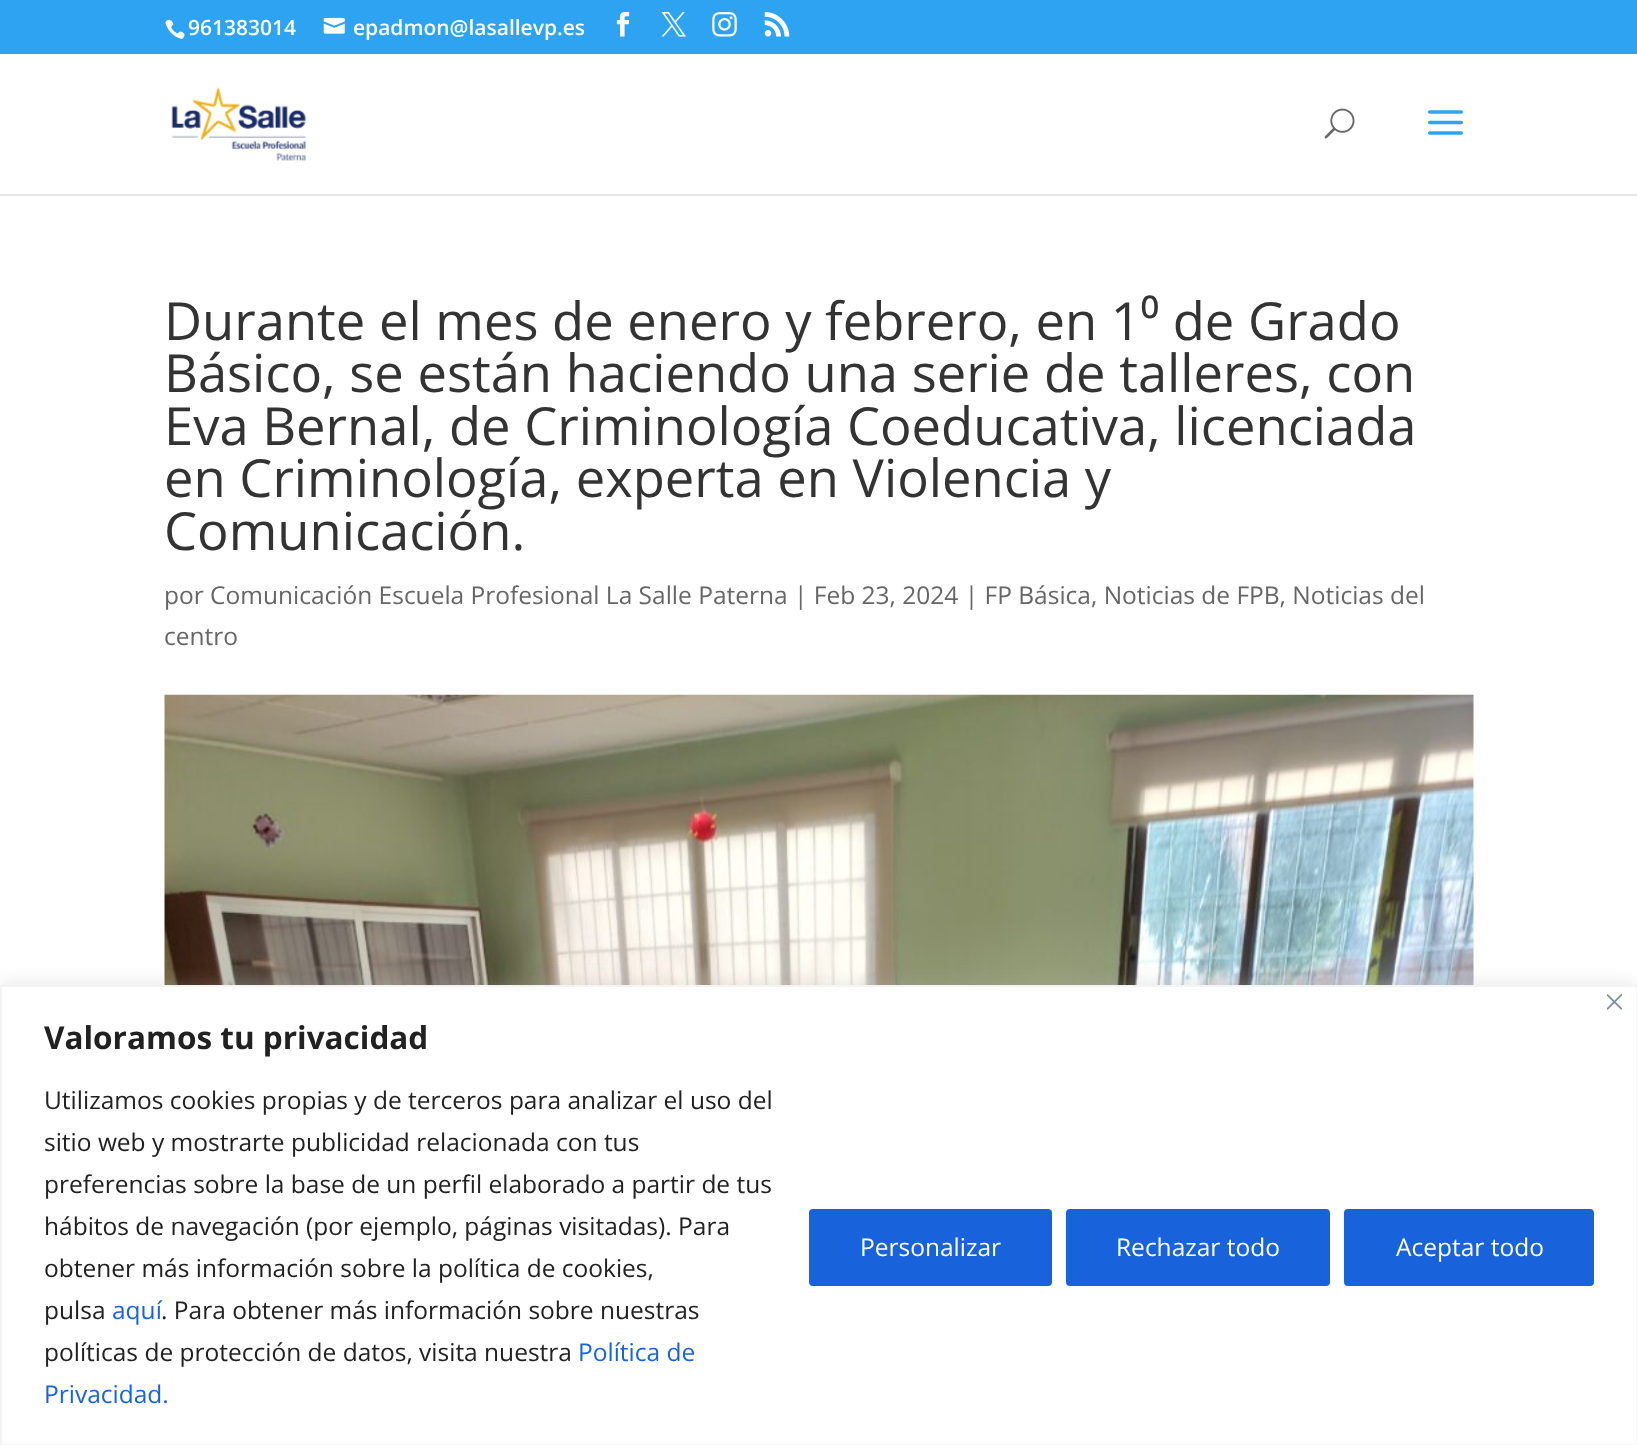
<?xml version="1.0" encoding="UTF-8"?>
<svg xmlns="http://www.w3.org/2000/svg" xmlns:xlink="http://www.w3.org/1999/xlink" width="1637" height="1445">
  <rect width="100%" height="100%" fill="#ffffff" />
  <rect width="1637" height="54" fill="#2ea3f2" />
  <image x="165" y="19" width="20" height="20" xlink:href="image1.png" />
  <image x="323" y="17" width="22" height="17" xlink:href="image2.png" />
  <image x="616" y="12" width="14" height="25" xlink:href="image3.png" />
  <image x="661" y="12" width="25" height="25" xlink:href="image4.png" />
  <image x="712" y="12" width="25" height="25" xlink:href="image5.png" />
  <image x="764" y="12" width="26" height="25" xlink:href="image6.png" />
  <rect y="194" width="1637" height="2" fill="#e6e6e6" />
  <image x="171" y="87" width="136" height="74" xlink:href="image7.png" />
  <image x="1324" y="108" width="31" height="31" xlink:href="image8.png" />
  <image x="1428" y="110" width="35" height="25" xlink:href="image9.png" />
  <image x="164" y="694" width="1310" height="291" xlink:href="image10.png" />
  <rect y="984" width="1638" height="460" fill="#acabab" fill-opacity="0.3" filter="blur(9px)" />
  <rect x="1" y="986" width="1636" height="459" fill="#ffffff" stroke="#f4f4f4" stroke-width="2" />
  <image x="1607" y="994" width="15" height="16" xlink:href="image11.png" />
  <rect x="811" y="1211" width="239" height="73" rx="2" fill="#1863dc" stroke="#1863dc" stroke-width="4" />
  <rect x="1068" y="1211" width="260" height="73" rx="2" fill="#1863dc" stroke="#1863dc" stroke-width="4" />
  <rect x="1346" y="1211" width="246" height="73" rx="2" fill="#1863dc" stroke="#1863dc" stroke-width="4" />
  <text x="188" y="35" style="font-family: Open Sans; font-size: 21px; font-weight: 600; fill: #ffffff">961383014</text>
  <text x="353" y="35" style="font-family: Open Sans; font-size: 21px; font-weight: 600; fill: #ffffff">epadmon@lasallevp.es</text>
  <text x="164" y="340" style="font-family: Open Sans; font-size: 52.5px; fill: #333333">Durante el mes de enero y febrero, en 1⁰ de Grado</text>
  <text x="164" y="392" style="font-family: Open Sans; font-size: 52.5px; fill: #333333">Básico, se están haciendo una serie de talleres, con</text>
  <text x="164" y="445" style="font-family: Open Sans; font-size: 52.5px; fill: #333333">Eva Bernal, de Criminología Coeducativa, licenciada</text>
  <text x="164" y="497" style="font-family: Open Sans; font-size: 52.5px; fill: #333333">en Criminología, experta en Violencia y</text>
  <text x="164" y="550" style="font-family: Open Sans; font-size: 52.5px; fill: #333333">Comunicación.</text>
  <text x="164" y="604" style="font-family: Open Sans; font-size: 24.5px; fill: #666666">por Comunicación Escuela Profesional La Salle Paterna | Feb 23, 2024 | FP Básica, Noticias de FPB, Noticias del</text>
  <text x="164" y="645" style="font-family: Open Sans; font-size: 24.5px; fill: #666666">centro</text>
  <text x="44" y="1049" style="font-family: Open Sans; font-size: 31.5px; font-weight: bold; fill: #212121">Valoramos tu privacidad</text>
  <text x="44" y="1109" style="font-family: Open Sans; font-size: 24.5px; fill: #212121">Utilizamos cookies propias y de terceros para analizar el uso del</text>
  <text x="44" y="1151" style="font-family: Open Sans; font-size: 24.5px; fill: #212121">sitio web y mostrarte publicidad relacionada con tus</text>
  <text x="44" y="1193" style="font-family: Open Sans; font-size: 24.5px; fill: #212121">preferencias sobre la base de un perfil elaborado a partir de tus</text>
  <text x="44" y="1235" style="font-family: Open Sans; font-size: 24.5px; fill: #212121">hábitos de navegación (por ejemplo, páginas visitadas). Para</text>
  <text x="44" y="1277" style="font-family: Open Sans; font-size: 24.5px; fill: #212121">obtener más información sobre la política de cookies,</text>
  <text x="44" y="1319" style="font-family: Open Sans; font-size: 24.5px; fill: #212121">pulsa</text>
  <text x="112" y="1319" style="font-family: Open Sans; font-size: 24.5px; fill: #1863dc">aquí</text>
  <text x="161" y="1319" style="font-family: Open Sans; font-size: 24.5px; fill: #212121">. Para obtener más información sobre nuestras</text>
  <text x="44" y="1361" style="font-family: Open Sans; font-size: 24.5px; fill: #212121">políticas de protección de datos, visita nuestra</text>
  <text x="578" y="1361" style="font-family: Open Sans; font-size: 24.5px; fill: #1863dc">Política de</text>
  <text x="44" y="1403" style="font-family: Open Sans; font-size: 24.5px; fill: #1863dc">Privacidad.</text>
  <text x="860" y="1256" style="font-family: Open Sans; font-size: 24.5px; fill: #ffffff">Personalizar</text>
  <text x="1116" y="1256" style="font-family: Open Sans; font-size: 24.5px; fill: #ffffff">Rechazar todo</text>
  <text x="1396" y="1256" style="font-family: Open Sans; font-size: 24.5px; fill: #ffffff">Aceptar todo</text>
</svg>
